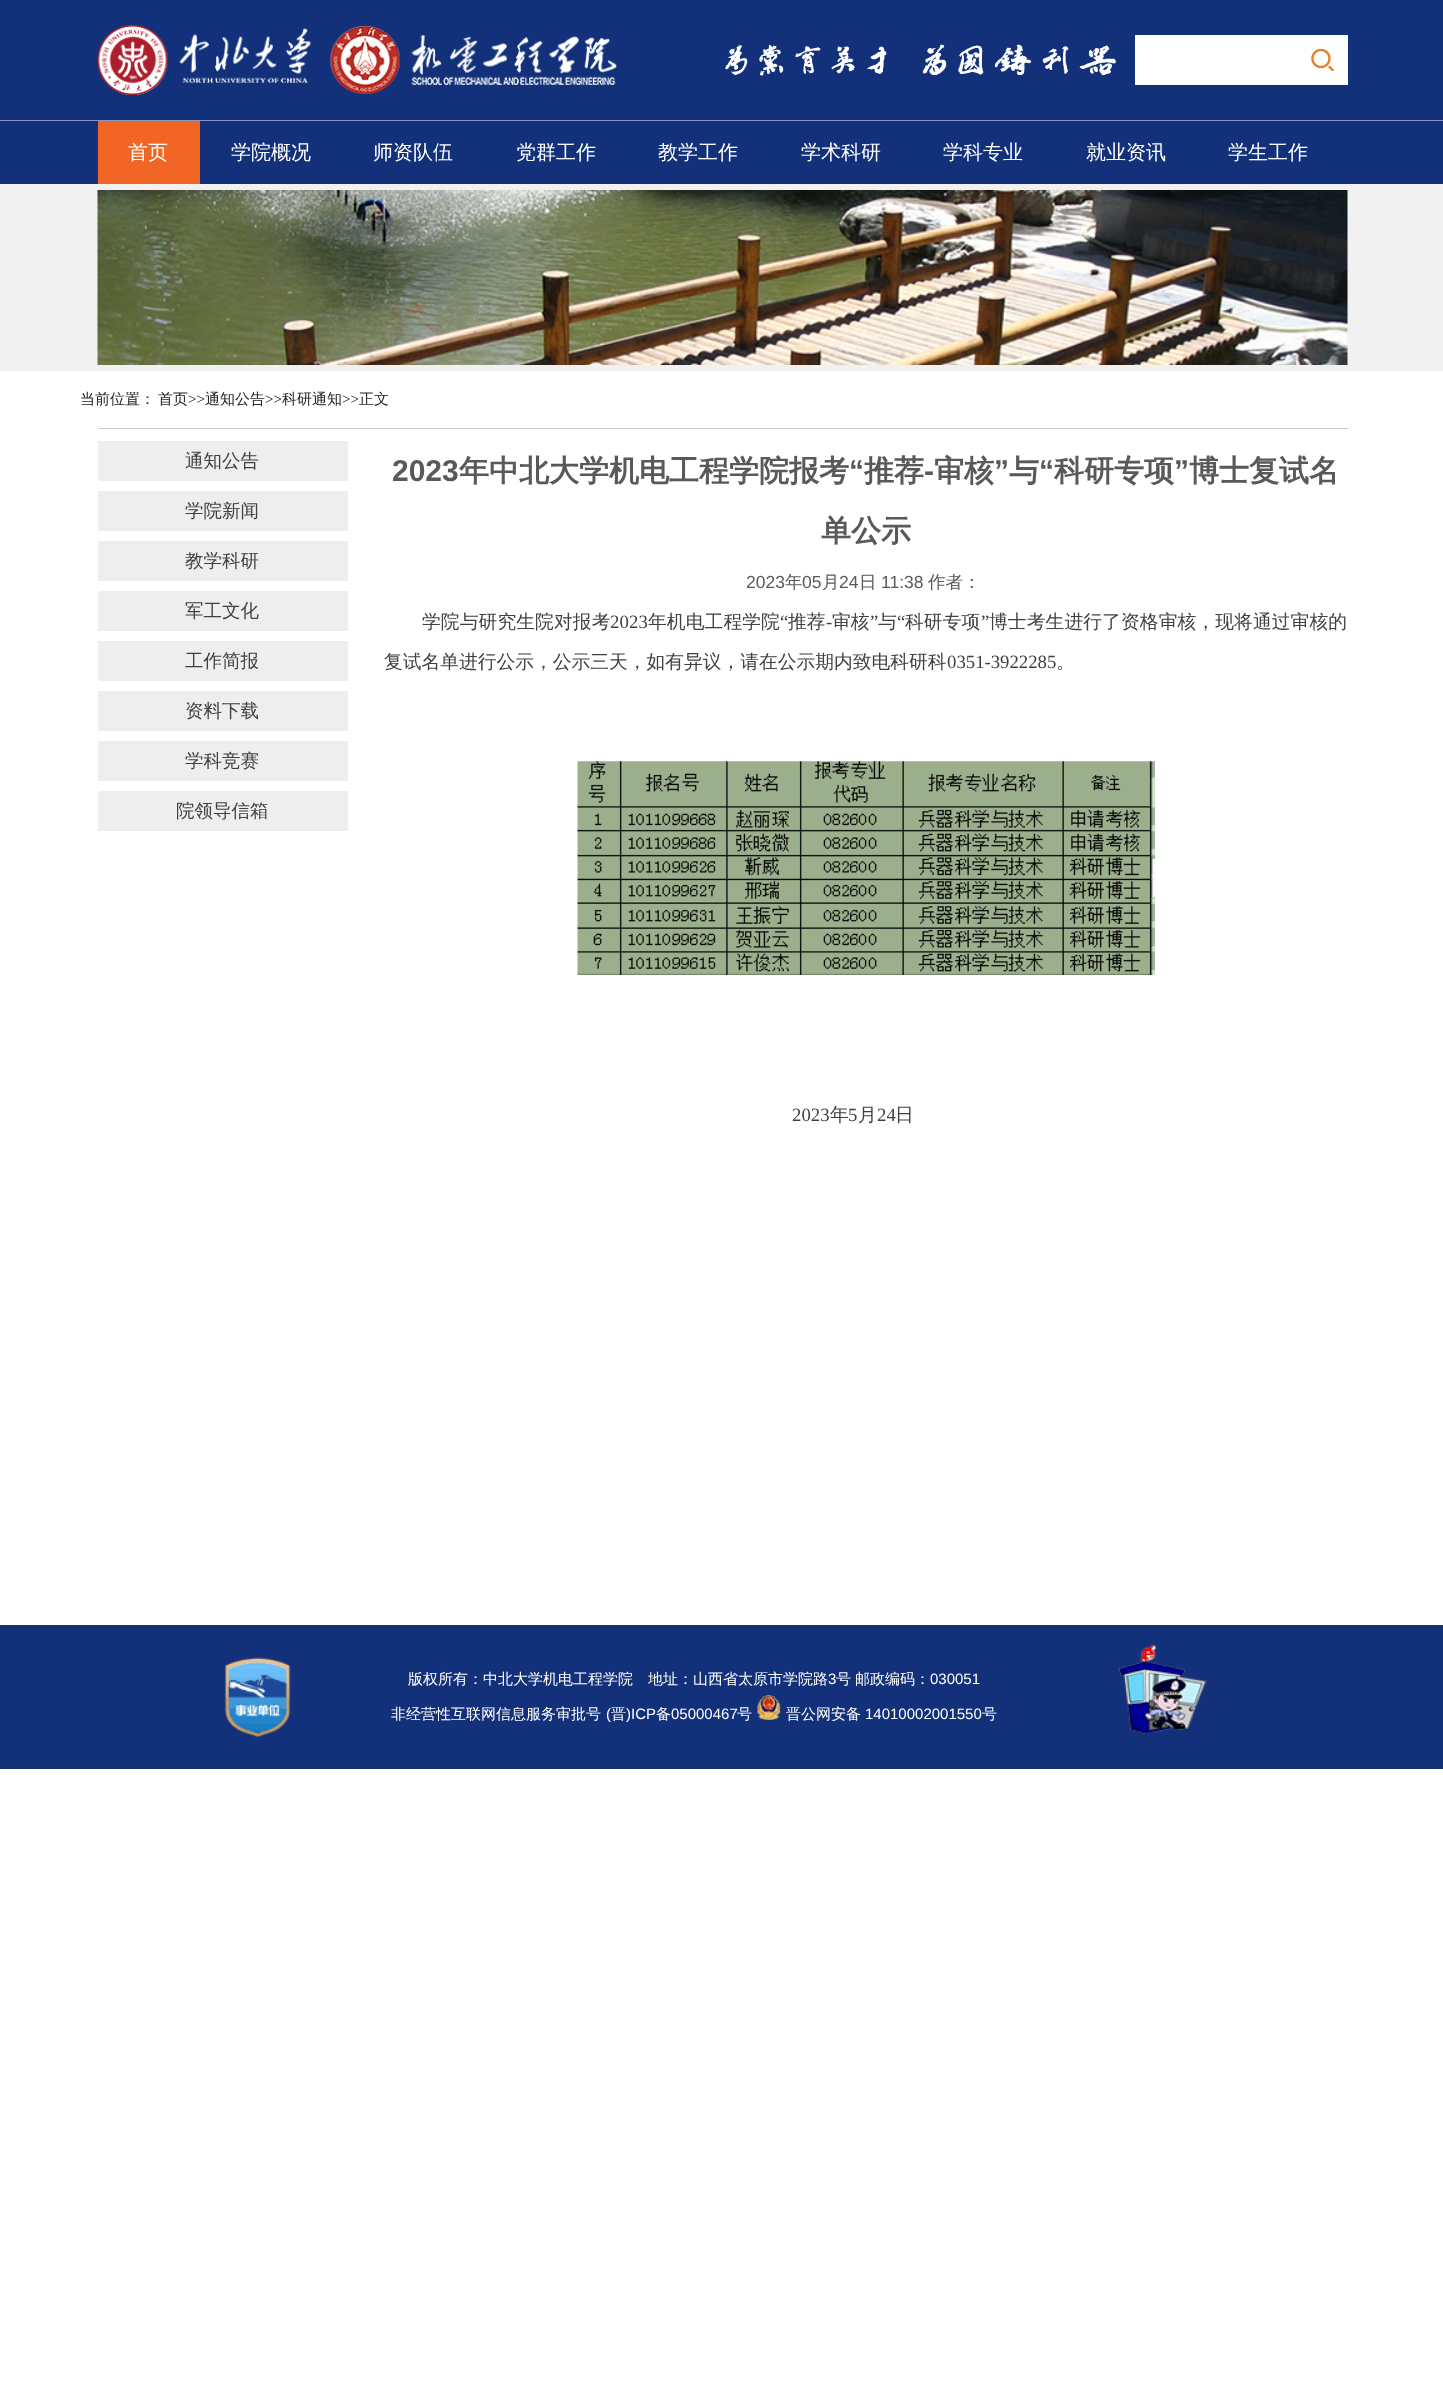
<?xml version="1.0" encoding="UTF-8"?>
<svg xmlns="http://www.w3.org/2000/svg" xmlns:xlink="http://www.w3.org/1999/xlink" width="1443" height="2394">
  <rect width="100%" height="100%" fill="#ffffff" />
  <rect width="1443" height="120" fill="#13317a" />
  <rect y="120" width="1443" height="1" fill="#8998bd" />
  <image x="97" y="25" width="520" height="70" xlink:href="image1.png" />
  <image x="725" y="44" width="392" height="32" xlink:href="image2.png" />
  <rect x="1135" y="35" width="213" height="50" fill="#ffffff" />
  <image x="1311" y="49" width="23" height="22" xlink:href="image3.png" />
  <rect y="121" width="1443" height="63" fill="#13317a" />
  <rect x="98" y="121" width="102" height="63" fill="#f16624" />
  <rect y="184" width="1443" height="187" fill="#f1f1f1" />
  <image x="97" y="190" width="1251" height="175" xlink:href="image4.png" />
  <rect x="98" y="428" width="1250" height="1" fill="#cccccc" />
  <rect x="98" y="441" width="250" height="40" fill="#eeeeee" />
  <rect x="98" y="491" width="250" height="40" fill="#eeeeee" />
  <rect x="98" y="541" width="250" height="40" fill="#eeeeee" />
  <rect x="98" y="591" width="250" height="40" fill="#eeeeee" />
  <rect x="98" y="641" width="250" height="40" fill="#eeeeee" />
  <rect x="98" y="691" width="250" height="40" fill="#eeeeee" />
  <rect x="98" y="741" width="250" height="40" fill="#eeeeee" />
  <rect x="98" y="791" width="250" height="40" fill="#eeeeee" />
  <image x="577" y="761" width="578" height="214" xlink:href="image5.png" />
  <rect y="1625" width="1443" height="144" fill="#13317a" />
  <image x="224" y="1657" width="67" height="81" xlink:href="image6.png" />
  <image x="757" y="1695" width="24" height="25" xlink:href="image7.png" />
  <image x="1118" y="1644" width="89" height="91" xlink:href="image8.png" />
  <text x="128" y="159" style="font-family: WenQuanYi Zen Hei; font-size: 20px; font-weight: 500; fill: #ffffff">首页</text>
  <text x="231" y="159" style="font-family: WenQuanYi Zen Hei; font-size: 20px; font-weight: 500; fill: #ffffff">学院概况</text>
  <text x="373" y="159" style="font-family: WenQuanYi Zen Hei; font-size: 20px; font-weight: 500; fill: #ffffff">师资队伍</text>
  <text x="516" y="159" style="font-family: WenQuanYi Zen Hei; font-size: 20px; font-weight: 500; fill: #ffffff">党群工作</text>
  <text x="658" y="159" style="font-family: WenQuanYi Zen Hei; font-size: 20px; font-weight: 500; fill: #ffffff">教学工作</text>
  <text x="801" y="159" style="font-family: WenQuanYi Zen Hei; font-size: 20px; font-weight: 500; fill: #ffffff">学术科研</text>
  <text x="943" y="159" style="font-family: WenQuanYi Zen Hei; font-size: 20px; font-weight: 500; fill: #ffffff">学科专业</text>
  <text x="1086" y="159" style="font-family: WenQuanYi Zen Hei; font-size: 20px; font-weight: 500; fill: #ffffff">就业资讯</text>
  <text x="1228" y="159" style="font-family: WenQuanYi Zen Hei; font-size: 20px; font-weight: 500; fill: #ffffff">学生工作</text>
  <text x="80" y="404" style="font-family: WenQuanYi Zen Hei; font-size: 15px; font-weight: 500; fill: #222222">当前位置：</text>
  <text x="158" y="404" style="font-family: WenQuanYi Zen Hei; font-size: 15px; font-weight: 500; fill: #222222">首页</text>
  <text x="188" y="404" style="font-family: Liberation Serif; font-size: 15px; fill: #222222">&gt;&gt;</text>
  <text x="205" y="404" style="font-family: WenQuanYi Zen Hei; font-size: 15px; font-weight: 500; fill: #222222">通知公告</text>
  <text x="265" y="404" style="font-family: Liberation Serif; font-size: 15px; fill: #222222">&gt;&gt;</text>
  <text x="282" y="404" style="font-family: WenQuanYi Zen Hei; font-size: 15px; font-weight: 500; fill: #222222">科研通知</text>
  <text x="342" y="404" style="font-family: Liberation Serif; font-size: 15px; fill: #222222">&gt;&gt;</text>
  <text x="359" y="404" style="font-family: WenQuanYi Zen Hei; font-size: 15px; font-weight: 500; fill: #222222">正文</text>
  <text x="185" y="467" style="font-family: WenQuanYi Zen Hei; font-size: 18.5px; font-weight: 500; fill: #404040">通知公告</text>
  <text x="185" y="517" style="font-family: WenQuanYi Zen Hei; font-size: 18.5px; font-weight: 500; fill: #404040">学院新闻</text>
  <text x="185" y="567" style="font-family: WenQuanYi Zen Hei; font-size: 18.5px; font-weight: 500; fill: #404040">教学科研</text>
  <text x="185" y="617" style="font-family: WenQuanYi Zen Hei; font-size: 18.5px; font-weight: 500; fill: #404040">军工文化</text>
  <text x="185" y="667" style="font-family: WenQuanYi Zen Hei; font-size: 18.5px; font-weight: 500; fill: #404040">工作简报</text>
  <text x="185" y="717" style="font-family: WenQuanYi Zen Hei; font-size: 18.5px; font-weight: 500; fill: #404040">资料下载</text>
  <text x="185" y="767" style="font-family: WenQuanYi Zen Hei; font-size: 18.5px; font-weight: 500; fill: #404040">学科竞赛</text>
  <text x="176" y="817" style="font-family: WenQuanYi Zen Hei; font-size: 18.5px; font-weight: 500; fill: #404040">院领导信箱</text>
  <text x="392" y="481" style="font-family: Liberation Sans; font-size: 30px; font-weight: bold; fill: #595959">2023</text>
  <text x="459" y="481" style="font-family: WenQuanYi Zen Hei; font-size: 30px; font-weight: bold; fill: #595959">年中北大学机电工程学院报考</text>
  <text x="849" y="481" style="font-family: Liberation Sans; font-size: 30px; font-weight: bold; fill: #595959">“</text>
  <text x="864" y="481" style="font-family: WenQuanYi Zen Hei; font-size: 30px; font-weight: bold; fill: #595959">推荐</text>
  <text x="934" y="481" style="font-family: WenQuanYi Zen Hei; font-size: 30px; font-weight: bold; fill: #595959">审核</text>
  <text x="994" y="481" style="font-family: Liberation Sans; font-size: 30px; font-weight: bold; fill: #595959">”</text>
  <text x="1009" y="481" style="font-family: WenQuanYi Zen Hei; font-size: 30px; font-weight: bold; fill: #595959">与</text>
  <text x="1039" y="481" style="font-family: Liberation Sans; font-size: 30px; font-weight: bold; fill: #595959">“</text>
  <text x="1054" y="481" style="font-family: WenQuanYi Zen Hei; font-size: 30px; font-weight: bold; fill: #595959">科研专项</text>
  <text x="1174" y="481" style="font-family: Liberation Sans; font-size: 30px; font-weight: bold; fill: #595959">”</text>
  <text x="1189" y="481" style="font-family: WenQuanYi Zen Hei; font-size: 30px; font-weight: bold; fill: #595959">博士复试名</text>
  <text x="924" y="481" style="font-family: Liberation Sans; font-size: 30px; font-weight: bold; fill: #595959">-</text>
  <text x="821" y="541" style="font-family: WenQuanYi Zen Hei; font-size: 30px; font-weight: bold; fill: #595959">单公示</text>
  <text x="746" y="588" style="font-family: Liberation Sans; font-size: 17.5px; fill: #595959">2023</text>
  <text x="785" y="588" style="font-family: WenQuanYi Zen Hei; font-size: 17.5px; font-weight: 500; fill: #595959">年</text>
  <text x="802" y="588" style="font-family: Liberation Sans; font-size: 17.5px; fill: #595959">05</text>
  <text x="822" y="588" style="font-family: WenQuanYi Zen Hei; font-size: 17.5px; font-weight: 500; fill: #595959">月</text>
  <text x="839" y="588" style="font-family: Liberation Sans; font-size: 17.5px; fill: #595959">24</text>
  <text x="859" y="588" style="font-family: WenQuanYi Zen Hei; font-size: 17.5px; font-weight: 500; fill: #595959">日</text>
  <text x="881" y="588" style="font-family: Liberation Sans; font-size: 17.5px; fill: #595959">11:38</text>
  <text x="928" y="588" style="font-family: WenQuanYi Zen Hei; font-size: 17.5px; font-weight: 500; fill: #595959">作者：</text>
  <text x="422" y="628" style="font-family: WenQuanYi Zen Hei; font-size: 18.75px; font-weight: 500; letter-spacing: 0.1px; fill: #404040">学院与研究生院对报考</text>
  <text x="610" y="628" style="font-family: Liberation Serif; font-size: 18.75px; letter-spacing: 0.1px; fill: #404040">2023</text>
  <text x="648" y="628" style="font-family: WenQuanYi Zen Hei; font-size: 18.75px; font-weight: 500; letter-spacing: 0.1px; fill: #404040">年机电工程学院</text>
  <text x="780" y="628" style="font-family: Liberation Serif; font-size: 18.75px; letter-spacing: 0.1px; fill: #404040">“</text>
  <text x="788" y="628" style="font-family: WenQuanYi Zen Hei; font-size: 18.75px; font-weight: 500; letter-spacing: 0.1px; fill: #404040">推荐</text>
  <text x="832" y="628" style="font-family: WenQuanYi Zen Hei; font-size: 18.75px; font-weight: 500; letter-spacing: 0.1px; fill: #404040">审核</text>
  <text x="870" y="628" style="font-family: Liberation Serif; font-size: 18.75px; letter-spacing: 0.1px; fill: #404040">”</text>
  <text x="878" y="628" style="font-family: WenQuanYi Zen Hei; font-size: 18.75px; font-weight: 500; letter-spacing: 0.1px; fill: #404040">与</text>
  <text x="897" y="628" style="font-family: Liberation Serif; font-size: 18.75px; letter-spacing: 0.1px; fill: #404040">“</text>
  <text x="905" y="628" style="font-family: WenQuanYi Zen Hei; font-size: 18.75px; font-weight: 500; letter-spacing: 0.1px; fill: #404040">科研专项</text>
  <text x="981" y="628" style="font-family: Liberation Serif; font-size: 18.75px; letter-spacing: 0.1px; fill: #404040">”</text>
  <text x="989" y="628" style="font-family: WenQuanYi Zen Hei; font-size: 18.75px; font-weight: 500; letter-spacing: 0.1px; fill: #404040">博士考生进行了资格审核，现将通过审核的</text>
  <text x="826" y="628" style="font-family: Liberation Serif; font-size: 18.75px; letter-spacing: 0.1px; fill: #404040">-</text>
  <text x="384" y="668" style="font-family: WenQuanYi Zen Hei; font-size: 18.75px; font-weight: 500; fill: #404040">复试名单进行公示，公示三天，如有异议，请在公示期内致电科研科</text>
  <text x="947" y="668" style="font-family: Liberation Serif; font-size: 18.75px; fill: #404040">0351-3922285</text>
  <text x="1056" y="668" style="font-family: WenQuanYi Zen Hei; font-size: 18.75px; font-weight: 500; fill: #404040">。</text>
  <text x="792" y="1121" style="font-family: Liberation Serif; font-size: 18.75px; fill: #404040">2023</text>
  <text x="830" y="1121" style="font-family: WenQuanYi Zen Hei; font-size: 18.75px; font-weight: 500; fill: #404040">年</text>
  <text x="848" y="1121" style="font-family: Liberation Serif; font-size: 18.75px; fill: #404040">5</text>
  <text x="858" y="1121" style="font-family: WenQuanYi Zen Hei; font-size: 18.75px; font-weight: 500; fill: #404040">月</text>
  <text x="877" y="1121" style="font-family: Liberation Serif; font-size: 18.75px; fill: #404040">24</text>
  <text x="895" y="1121" style="font-family: WenQuanYi Zen Hei; font-size: 18.75px; font-weight: 500; fill: #404040">日</text>
  <text x="408" y="1684" style="font-family: WenQuanYi Zen Hei; font-size: 15px; font-weight: 500; fill: #ffffff">版权所有：中北大学机电工程学院　地址：山西省太原市学院路</text>
  <text x="828" y="1684" style="font-family: Liberation Sans; font-size: 15px; fill: #ffffff">3</text>
  <text x="836" y="1684" style="font-family: WenQuanYi Zen Hei; font-size: 15px; font-weight: 500; fill: #ffffff">号</text>
  <text x="855" y="1684" style="font-family: WenQuanYi Zen Hei; font-size: 15px; font-weight: 500; fill: #ffffff">邮政编码：</text>
  <text x="930" y="1684" style="font-family: Liberation Sans; font-size: 15px; fill: #ffffff">030051</text>
  <text x="391" y="1719" style="font-family: WenQuanYi Zen Hei; font-size: 15px; font-weight: 500; fill: #ffffff">非经营性互联网信息服务审批号</text>
  <text x="606" y="1719" style="font-family: Liberation Sans; font-size: 15px; fill: #ffffff">(</text>
  <text x="611" y="1719" style="font-family: WenQuanYi Zen Hei; font-size: 15px; font-weight: 500; fill: #ffffff">晋</text>
  <text x="626" y="1719" style="font-family: Liberation Sans; font-size: 15px; fill: #ffffff">)ICP</text>
  <text x="656" y="1719" style="font-family: WenQuanYi Zen Hei; font-size: 15px; font-weight: 500; fill: #ffffff">备</text>
  <text x="671" y="1719" style="font-family: Liberation Sans; font-size: 15px; fill: #ffffff">05000467</text>
  <text x="737" y="1719" style="font-family: WenQuanYi Zen Hei; font-size: 15px; font-weight: 500; fill: #ffffff">号</text>
  <text x="786" y="1719" style="font-family: WenQuanYi Zen Hei; font-size: 15px; font-weight: 500; fill: #ffffff">晋公网安备</text>
  <text x="865" y="1719" style="font-family: Liberation Sans; font-size: 15px; fill: #ffffff">14010002001550</text>
  <text x="982" y="1719" style="font-family: WenQuanYi Zen Hei; font-size: 15px; font-weight: 500; fill: #ffffff">号</text>
</svg>
